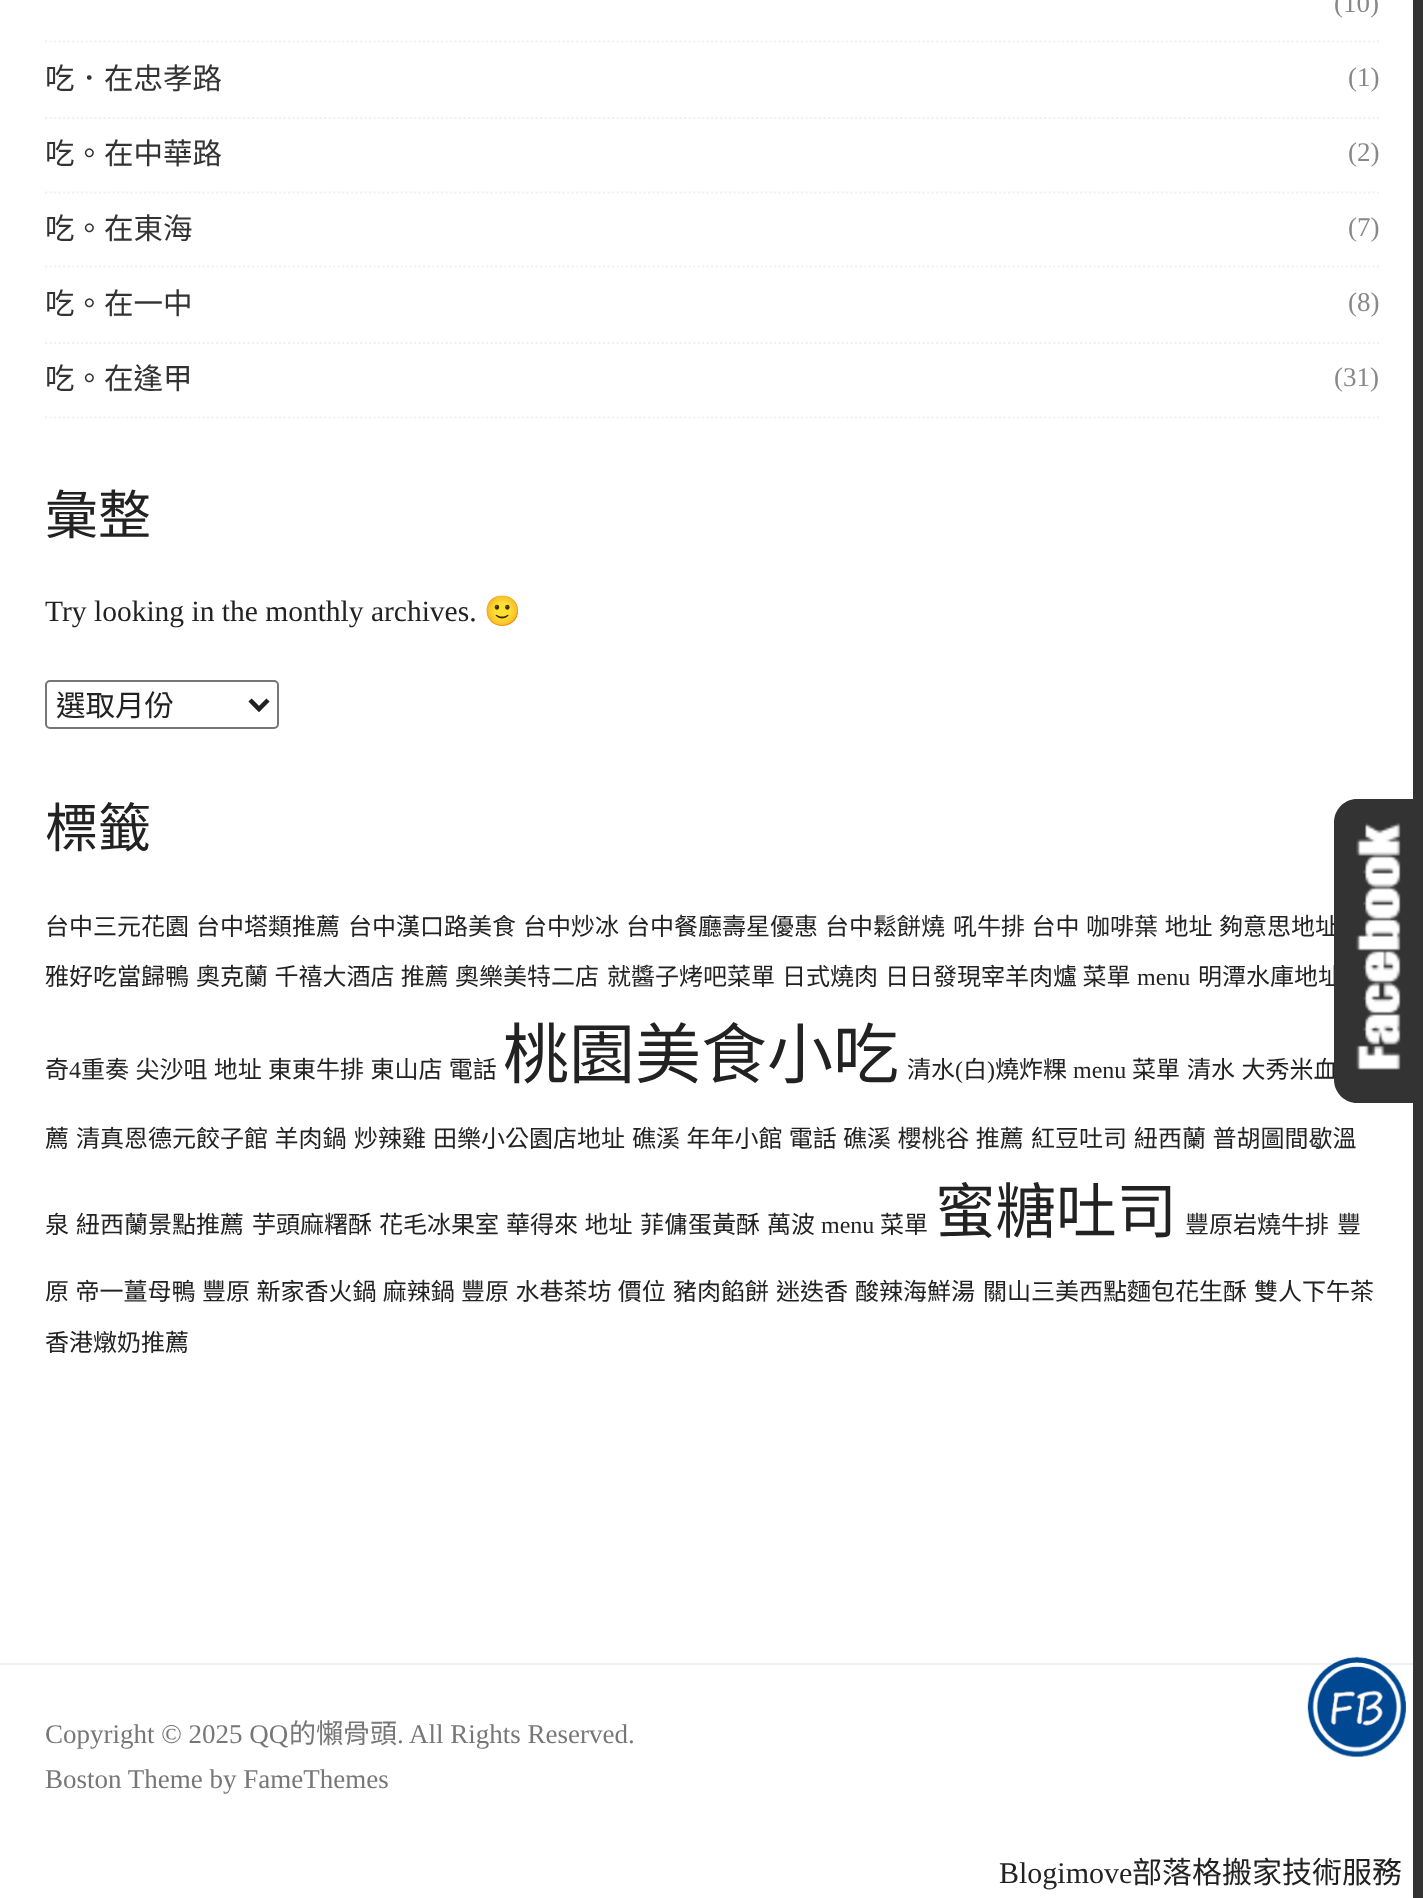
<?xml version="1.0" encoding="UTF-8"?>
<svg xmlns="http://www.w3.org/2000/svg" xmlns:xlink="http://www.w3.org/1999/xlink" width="1423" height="1898">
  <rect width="100%" height="100%" fill="#ffffff" />
  <path d="M 45 41.5 h 1334" fill="none" stroke="#f1f1f1" stroke-width="2.2" stroke-dasharray="2.25 2.25" />
  <path d="M 45 118 h 1334" fill="none" stroke="#f1f1f1" stroke-width="2.2" stroke-dasharray="2.25 2.25" />
  <path d="M 45 192.5 h 1334" fill="none" stroke="#f1f1f1" stroke-width="2.2" stroke-dasharray="2.25 2.25" />
  <path d="M 45 266.5 h 1334" fill="none" stroke="#f1f1f1" stroke-width="2.2" stroke-dasharray="2.25 2.25" />
  <path d="M 45 343 h 1334" fill="none" stroke="#f1f1f1" stroke-width="2.2" stroke-dasharray="2.25 2.25" />
  <path d="M 45 417.5 h 1334" fill="none" stroke="#f1f1f1" stroke-width="2.2" stroke-dasharray="2.25 2.25" />
  <rect x="46" y="681" width="232" height="47" rx="4" fill="none" stroke="#767676" stroke-width="2" />
  <path d="M 250 700 l 9 9 l 9 -9" fill="none" stroke="#222222" stroke-width="4.5" />
  <rect y="1663" width="1413" height="2" fill="#f1f1f1" />
  <rect x="1413" width="10" height="1898" fill="#333333" />
  <image x="1307" y="1656" width="100" height="102" xlink:href="image2.png" />
  <text x="1334" y="12" style="font-family: Liberation Serif; font-size: 27px; fill: #888888">(10)</text>
  <text x="45" y="89" style="font-family: Noto Sans CJK TC; font-size: 29.5px; fill: #333333">吃．在忠孝路</text>
  <text x="1348" y="86" style="font-family: Liberation Serif; font-size: 27px; fill: #888888">(1)</text>
  <text x="45" y="164" style="font-family: Noto Sans CJK TC; font-size: 29.5px; fill: #333333">吃。在中華路</text>
  <text x="1348" y="161" style="font-family: Liberation Serif; font-size: 27px; fill: #888888">(2)</text>
  <text x="45" y="239" style="font-family: Noto Sans CJK TC; font-size: 29.5px; fill: #333333">吃。在東海</text>
  <text x="1348" y="236" style="font-family: Liberation Serif; font-size: 27px; fill: #888888">(7)</text>
  <text x="45" y="314" style="font-family: Noto Sans CJK TC; font-size: 29.5px; fill: #333333">吃。在一中</text>
  <text x="1348" y="311" style="font-family: Liberation Serif; font-size: 27px; fill: #888888">(8)</text>
  <text x="45" y="389" style="font-family: Noto Sans CJK TC; font-size: 29.5px; fill: #333333">吃。在逢甲</text>
  <text x="1334" y="386" style="font-family: Liberation Serif; font-size: 27px; fill: #888888">(31)</text>
  <text x="45" y="534" style="font-family: Noto Sans CJK TC; font-size: 53px; fill: #222222">彙整</text>
  <text x="45" y="621" style="font-family: Liberation Serif; font-size: 29.5px; fill: #222222">Try looking in the monthly archives.</text>
  <text x="484" y="621" style="font-family: Noto Color Emoji; font-size: 29.5px; fill: #222222">🙂</text>
  <text x="56" y="716" style="font-family: Noto Sans CJK TC; font-size: 29.5px; fill: #222222">選取月份</text>
  <text x="45" y="847" style="font-family: Noto Sans CJK TC; font-size: 53px; fill: #222222">標籤</text>
  <text x="45" y="935" style="font-family: Noto Sans CJK TC; font-size: 24px; fill: #222222">台中三元花園</text>
  <text x="196" y="935" style="font-family: Noto Sans CJK TC; font-size: 24px; fill: #222222">台中塔類推薦</text>
  <text x="348" y="935" style="font-family: Noto Sans CJK TC; font-size: 24px; fill: #222222">台中漢口路美食</text>
  <text x="523" y="935" style="font-family: Noto Sans CJK TC; font-size: 24px; fill: #222222">台中炒冰</text>
  <text x="626" y="935" style="font-family: Noto Sans CJK TC; font-size: 24px; fill: #222222">台中餐廳壽星優惠</text>
  <text x="825" y="935" style="font-family: Noto Sans CJK TC; font-size: 24px; fill: #222222">台中鬆餅燒</text>
  <text x="953" y="935" word-spacing="1" style="font-family: Noto Sans CJK TC; font-size: 24px; fill: #222222">吼牛排 台中</text>
  <text x="1086" y="935" word-spacing="1" style="font-family: Noto Sans CJK TC; font-size: 24px; fill: #222222">咖啡葉 地址</text>
  <text x="1219" y="935" style="font-family: Noto Sans CJK TC; font-size: 24px; fill: #222222">夠意思地址</text>
  <text x="45" y="985" style="font-family: Noto Sans CJK TC; font-size: 24px; fill: #222222">雅好吃當歸鴨</text>
  <text x="196" y="985" word-spacing="1" style="font-family: Noto Sans CJK TC; font-size: 24px; fill: #222222">奧克蘭 千禧大酒店 推薦</text>
  <text x="455" y="985" style="font-family: Noto Sans CJK TC; font-size: 24px; fill: #222222">奧樂美特二店</text>
  <text x="607" y="985" style="font-family: Noto Sans CJK TC; font-size: 24px; fill: #222222">就醬子烤吧菜單</text>
  <text x="782" y="985" style="font-family: Noto Sans CJK TC; font-size: 24px; fill: #222222">日式燒肉</text>
  <text x="885" y="985" style="font-family: Noto Sans CJK TC; font-size: 24px; fill: #222222">日日發現宰羊肉爐 菜單</text>
  <text x="1137" y="985" style="font-family: Liberation Serif; font-size: 24px; fill: #222222">menu</text>
  <text x="1198" y="985" style="font-family: Noto Sans CJK TC; font-size: 24px; fill: #222222">明潭水庫地址</text>
  <text x="45" y="1078" style="font-family: Noto Sans CJK TC; font-size: 24px; fill: #222222">奇</text>
  <text x="69" y="1078" style="font-family: Liberation Serif; font-size: 24px; fill: #222222">4</text>
  <text x="81" y="1078" word-spacing="1" style="font-family: Noto Sans CJK TC; font-size: 24px; fill: #222222">重奏 尖沙咀 地址</text>
  <text x="268" y="1078" word-spacing="1" style="font-family: Noto Sans CJK TC; font-size: 24px; fill: #222222">東東牛排 東山店 電話</text>
  <text x="503" y="1078" style="font-family: Noto Sans CJK TC; font-size: 66px; fill: #222222">桃園美食小吃</text>
  <text x="907" y="1078" style="font-family: Noto Sans CJK TC; font-size: 24px; fill: #222222">清水</text>
  <text x="955" y="1078" style="font-family: Liberation Serif; font-size: 24px; fill: #222222">(</text>
  <text x="963" y="1078" style="font-family: Noto Sans CJK TC; font-size: 24px; fill: #222222">白</text>
  <text x="987" y="1078" style="font-family: Liberation Serif; font-size: 24px; fill: #222222">)</text>
  <text x="995" y="1078" style="font-family: Noto Sans CJK TC; font-size: 24px; fill: #222222">燒炸粿</text>
  <text x="1073" y="1078" style="font-family: Liberation Serif; font-size: 24px; fill: #222222">menu</text>
  <text x="1132" y="1078" style="font-family: Noto Sans CJK TC; font-size: 24px; fill: #222222">菜單</text>
  <text x="1187" y="1078" word-spacing="1" style="font-family: Noto Sans CJK TC; font-size: 24px; fill: #222222">清水 大秀米血</text>
  <text x="45" y="1147" style="font-family: Noto Sans CJK TC; font-size: 24px; fill: #222222">薦</text>
  <text x="76" y="1147" word-spacing="1" style="font-family: Noto Sans CJK TC; font-size: 24px; fill: #222222">清真恩德元餃子館 羊肉鍋</text>
  <text x="354" y="1147" style="font-family: Noto Sans CJK TC; font-size: 24px; fill: #222222">炒辣雞</text>
  <text x="433" y="1147" style="font-family: Noto Sans CJK TC; font-size: 24px; fill: #222222">田樂小公園店地址</text>
  <text x="632" y="1147" word-spacing="1" style="font-family: Noto Sans CJK TC; font-size: 24px; fill: #222222">礁溪 年年小館 電話</text>
  <text x="843" y="1147" word-spacing="1" style="font-family: Noto Sans CJK TC; font-size: 24px; fill: #222222">礁溪 櫻桃谷 推薦</text>
  <text x="1031" y="1147" style="font-family: Noto Sans CJK TC; font-size: 24px; fill: #222222">紅豆吐司</text>
  <text x="1134" y="1147" word-spacing="1" style="font-family: Noto Sans CJK TC; font-size: 24px; fill: #222222">紐西蘭 普胡圖間歇溫</text>
  <text x="45" y="1233" style="font-family: Noto Sans CJK TC; font-size: 24px; fill: #222222">泉</text>
  <text x="76" y="1233" style="font-family: Noto Sans CJK TC; font-size: 24px; fill: #222222">紐西蘭景點推薦</text>
  <text x="252" y="1233" style="font-family: Noto Sans CJK TC; font-size: 24px; fill: #222222">芋頭麻糬酥</text>
  <text x="379" y="1233" style="font-family: Noto Sans CJK TC; font-size: 24px; fill: #222222">花毛冰果室</text>
  <text x="506" y="1233" word-spacing="1" style="font-family: Noto Sans CJK TC; font-size: 24px; fill: #222222">華得來 地址</text>
  <text x="640" y="1233" style="font-family: Noto Sans CJK TC; font-size: 24px; fill: #222222">菲傭蛋黃酥</text>
  <text x="767" y="1233" style="font-family: Noto Sans CJK TC; font-size: 24px; fill: #222222">萬波</text>
  <text x="821" y="1233" style="font-family: Liberation Serif; font-size: 24px; fill: #222222">menu</text>
  <text x="880" y="1233" style="font-family: Noto Sans CJK TC; font-size: 24px; fill: #222222">菜單</text>
  <text x="935" y="1233" style="font-family: Noto Sans CJK TC; font-size: 60.5px; fill: #222222">蜜糖吐司</text>
  <text x="1185" y="1233" style="font-family: Noto Sans CJK TC; font-size: 24px; fill: #222222">豐原岩燒牛排</text>
  <text x="1337" y="1233" style="font-family: Noto Sans CJK TC; font-size: 24px; fill: #222222">豐</text>
  <text x="45" y="1300" word-spacing="1" style="font-family: Noto Sans CJK TC; font-size: 24px; fill: #222222">原 帝一薑母鴨</text>
  <text x="202" y="1300" word-spacing="1" style="font-family: Noto Sans CJK TC; font-size: 24px; fill: #222222">豐原 新家香火鍋 麻辣鍋</text>
  <text x="461" y="1300" word-spacing="1" style="font-family: Noto Sans CJK TC; font-size: 24px; fill: #222222">豐原 水巷茶坊 價位</text>
  <text x="673" y="1300" style="font-family: Noto Sans CJK TC; font-size: 24px; fill: #222222">豬肉餡餅</text>
  <text x="776" y="1300" style="font-family: Noto Sans CJK TC; font-size: 24px; fill: #222222">迷迭香</text>
  <text x="855" y="1300" style="font-family: Noto Sans CJK TC; font-size: 24px; fill: #222222">酸辣海鮮湯</text>
  <text x="983" y="1300" style="font-family: Noto Sans CJK TC; font-size: 24px; fill: #222222">關山三美西點麵包花生酥</text>
  <text x="1254" y="1300" style="font-family: Noto Sans CJK TC; font-size: 24px; fill: #222222">雙人下午茶</text>
  <text x="45" y="1351" style="font-family: Noto Sans CJK TC; font-size: 24px; fill: #222222">香港燉奶推薦</text>
  <text x="45" y="1743" style="font-family: Liberation Serif; font-size: 27px; fill: #777777">Copyright © 2025 QQ</text>
  <text x="289" y="1743" style="font-family: Noto Sans CJK TC; font-size: 27px; fill: #777777">的懶骨頭</text>
  <text x="397" y="1743" style="font-family: Liberation Serif; font-size: 27px; fill: #777777">. All Rights Reserved.</text>
  <text x="45" y="1788" style="font-family: Liberation Serif; font-size: 27px; fill: #777777">Boston Theme by FameThemes</text>
  <path d="M 1357 799 h 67 v 304 h -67 c -12.5 0 -23 -10.5 -23 -23 v -258 c 0 -12.5 10.5 -23 23 -23 z" fill="#333333" />
  <image x="1356" y="822" width="45" height="248" xlink:href="image1.png" />
  <text x="999" y="1883" style="font-family: Liberation Serif; font-size: 30px; fill: #222222">Blogimove</text>
  <text x="1132" y="1883" style="font-family: Noto Sans CJK TC; font-size: 30px; fill: #222222">部落格搬家技術服務</text>
</svg>
